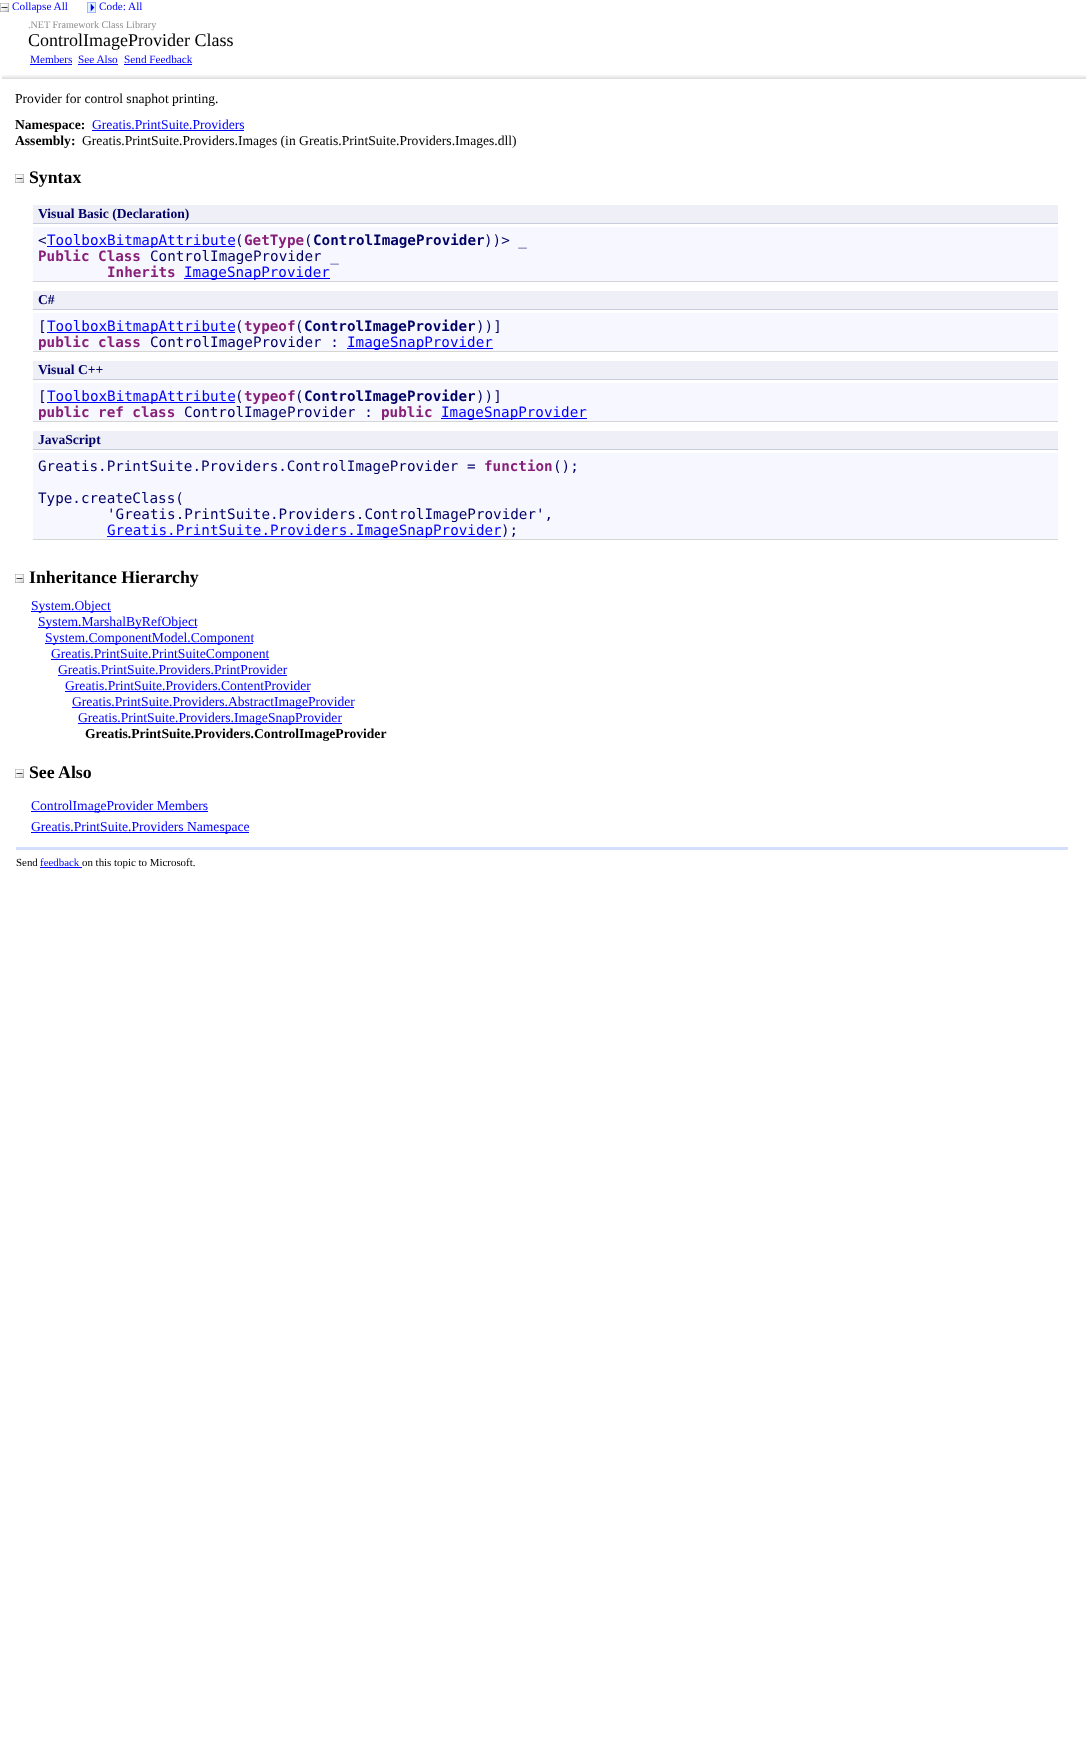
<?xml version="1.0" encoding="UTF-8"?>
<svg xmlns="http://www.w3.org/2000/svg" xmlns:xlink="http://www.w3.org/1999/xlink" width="1088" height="1747">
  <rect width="100%" height="100%" fill="#ffffff" />
  <image x="0" y="3" width="9" height="9" xlink:href="image1.png" />
  <image x="87" y="2" width="9" height="11" xlink:href="image2.png" />
  <rect x="30" y="64" width="42" height="1" fill="#0000ff" />
  <rect x="78" y="64" width="40" height="1" fill="#0000ff" />
  <rect x="124" y="64" width="68" height="1" fill="#0000ff" />
  <image x="2" y="75" width="1084" height="4" xlink:href="image3.png" />
  <rect x="92" y="130" width="152" height="1" fill="#0000ff" />
  <image x="15" y="174" width="9" height="9" xlink:href="image1.png" />
  <rect x="33" y="205" width="1025" height="18" fill="#efeff7" />
  <rect x="33" y="223" width="1025" height="1" fill="#c8cdde" />
  <rect x="33" y="227" width="1025" height="54" fill="#f7f7ff" />
  <rect x="33" y="281" width="1025" height="1" fill="#d5d5d3" />
  <rect x="47" y="246" width="188" height="1" fill="#0000ff" />
  <rect x="184" y="278" width="146" height="1" fill="#0000ff" />
  <rect x="33" y="291" width="1025" height="18" fill="#efeff7" />
  <rect x="33" y="309" width="1025" height="1" fill="#c8cdde" />
  <rect x="33" y="313" width="1025" height="38" fill="#f7f7ff" />
  <rect x="33" y="351" width="1025" height="1" fill="#d5d5d3" />
  <rect x="47" y="332" width="188" height="1" fill="#0000ff" />
  <rect x="347" y="348" width="146" height="1" fill="#0000ff" />
  <rect x="33" y="361" width="1025" height="18" fill="#efeff7" />
  <rect x="33" y="379" width="1025" height="1" fill="#c8cdde" />
  <rect x="33" y="383" width="1025" height="38" fill="#f7f7ff" />
  <rect x="33" y="421" width="1025" height="1" fill="#d5d5d3" />
  <rect x="47" y="402" width="188" height="1" fill="#0000ff" />
  <rect x="441" y="418" width="146" height="1" fill="#0000ff" />
  <rect x="33" y="431" width="1025" height="18" fill="#efeff7" />
  <rect x="33" y="449" width="1025" height="1" fill="#c8cdde" />
  <rect x="33" y="453" width="1025" height="86" fill="#f7f7ff" />
  <rect x="33" y="539" width="1025" height="1" fill="#d5d5d3" />
  <rect x="107" y="536" width="394" height="1" fill="#0000ff" />
  <image x="15" y="574" width="9" height="9" xlink:href="image1.png" />
  <rect x="31" y="611" width="80" height="1" fill="#0000ff" />
  <rect x="38" y="627" width="159" height="1" fill="#0000ff" />
  <rect x="45" y="643" width="208" height="1" fill="#0000ff" />
  <rect x="51" y="659" width="218" height="1" fill="#0000ff" />
  <rect x="58" y="675" width="229" height="1" fill="#0000ff" />
  <rect x="65" y="691" width="245" height="1" fill="#0000ff" />
  <rect x="72" y="707" width="282" height="1" fill="#0000ff" />
  <rect x="78" y="723" width="264" height="1" fill="#0000ff" />
  <image x="15" y="769" width="9" height="9" xlink:href="image1.png" />
  <rect x="31" y="811" width="177" height="1" fill="#0000ff" />
  <rect x="31" y="832" width="218" height="1" fill="#0000ff" />
  <rect x="16" y="847" width="1052" height="3" fill="#d4dfff" />
  <rect x="40" y="867" width="42" height="1" fill="#0000ff" />
  <text x="12" y="10" style="font-family: Liberation Serif; font-size: 11.25px; fill: #0000ff">Collapse All</text>
  <text x="99" y="10" style="font-family: Liberation Serif; font-size: 11.25px; fill: #0000ff">Code: All</text>
  <text x="28" y="28" style="font-family: Liberation Serif; font-size: 10.1px; fill: #8c8c8c">.NET Framework Class Library</text>
  <text x="28" y="46" style="font-family: Liberation Serif; font-size: 18px; fill: #000000">ControlImageProvider Class</text>
  <text x="30" y="63" style="font-family: Liberation Serif; font-size: 11.25px; fill: #0000ff">Members</text>
  <text x="78" y="63" style="font-family: Liberation Serif; font-size: 11.25px; fill: #0000ff">See Also</text>
  <text x="124" y="63" style="font-family: Liberation Serif; font-size: 11.25px; fill: #0000ff">Send Feedback</text>
  <text x="15" y="103" style="font-family: Liberation Serif; font-size: 13.6px; fill: #000000">Provider for control snaphot printing.</text>
  <text x="15" y="129" style="font-family: Liberation Serif; font-size: 13.6px; font-weight: bold; fill: #000000">Namespace:</text>
  <text x="92" y="129" style="font-family: Liberation Serif; font-size: 13.6px; fill: #0000ff">Greatis.PrintSuite.Providers</text>
  <text x="15" y="145" style="font-family: Liberation Serif; font-size: 13.6px; font-weight: bold; fill: #000000">Assembly:</text>
  <text x="82" y="145" style="font-family: Liberation Serif; font-size: 13.6px; fill: #000000">Greatis.PrintSuite.Providers.Images (in Greatis.PrintSuite.Providers.Images.dll)</text>
  <text x="29" y="183" style="font-family: Liberation Serif; font-size: 17.75px; font-weight: bold; fill: #000000">Syntax</text>
  <text x="38" y="218" style="font-family: Liberation Serif; font-size: 13.6px; font-weight: bold; fill: #000066">Visual Basic (Declaration)</text>
  <text x="38" y="245" style="font-family: DejaVu Sans Mono; font-size: 14.25px; fill: #000066">&lt;</text>
  <text x="47" y="245" style="font-family: DejaVu Sans Mono; font-size: 14.25px; fill: #0000ff">ToolboxBitmapAttribute</text>
  <text x="235" y="245" style="font-family: DejaVu Sans Mono; font-size: 14.25px; fill: #000066">(</text>
  <text x="244" y="245" style="font-family: DejaVu Sans Mono; font-size: 14.25px; font-weight: bold; fill: #871f78">GetType</text>
  <text x="304" y="245" style="font-family: DejaVu Sans Mono; font-size: 14.25px; fill: #000066">(</text>
  <text x="313" y="245" style="font-family: DejaVu Sans Mono; font-size: 14.25px; font-weight: bold; fill: #000066">ControlImageProvider</text>
  <text x="484" y="245" style="font-family: DejaVu Sans Mono; font-size: 14.25px; fill: #000066">))&gt; _</text>
  <text x="38" y="261" style="font-family: DejaVu Sans Mono; font-size: 14.25px; font-weight: bold; fill: #871f78">Public Class</text>
  <text x="150" y="261" style="font-family: DejaVu Sans Mono; font-size: 14.25px; fill: #000066">ControlImageProvider _</text>
  <text x="107" y="277" style="font-family: DejaVu Sans Mono; font-size: 14.25px; font-weight: bold; fill: #871f78">Inherits</text>
  <text x="184" y="277" style="font-family: DejaVu Sans Mono; font-size: 14.25px; fill: #0000ff">ImageSnapProvider</text>
  <text x="38" y="304" style="font-family: Liberation Serif; font-size: 13.6px; font-weight: bold; fill: #000066">C#</text>
  <text x="38" y="331" style="font-family: DejaVu Sans Mono; font-size: 14.25px; fill: #000066">[</text>
  <text x="47" y="331" style="font-family: DejaVu Sans Mono; font-size: 14.25px; fill: #0000ff">ToolboxBitmapAttribute</text>
  <text x="235" y="331" style="font-family: DejaVu Sans Mono; font-size: 14.25px; fill: #000066">(</text>
  <text x="244" y="331" style="font-family: DejaVu Sans Mono; font-size: 14.25px; font-weight: bold; fill: #871f78">typeof</text>
  <text x="295" y="331" style="font-family: DejaVu Sans Mono; font-size: 14.25px; fill: #000066">(</text>
  <text x="304" y="331" style="font-family: DejaVu Sans Mono; font-size: 14.25px; font-weight: bold; fill: #000066">ControlImageProvider</text>
  <text x="476" y="331" style="font-family: DejaVu Sans Mono; font-size: 14.25px; fill: #000066">))]</text>
  <text x="38" y="347" style="font-family: DejaVu Sans Mono; font-size: 14.25px; font-weight: bold; fill: #871f78">public class</text>
  <text x="150" y="347" style="font-family: DejaVu Sans Mono; font-size: 14.25px; fill: #000066">ControlImageProvider :</text>
  <text x="347" y="347" style="font-family: DejaVu Sans Mono; font-size: 14.25px; fill: #0000ff">ImageSnapProvider</text>
  <text x="38" y="374" style="font-family: Liberation Serif; font-size: 13.6px; font-weight: bold; fill: #000066">Visual C++</text>
  <text x="38" y="401" style="font-family: DejaVu Sans Mono; font-size: 14.25px; fill: #000066">[</text>
  <text x="47" y="401" style="font-family: DejaVu Sans Mono; font-size: 14.25px; fill: #0000ff">ToolboxBitmapAttribute</text>
  <text x="235" y="401" style="font-family: DejaVu Sans Mono; font-size: 14.25px; fill: #000066">(</text>
  <text x="244" y="401" style="font-family: DejaVu Sans Mono; font-size: 14.25px; font-weight: bold; fill: #871f78">typeof</text>
  <text x="295" y="401" style="font-family: DejaVu Sans Mono; font-size: 14.25px; fill: #000066">(</text>
  <text x="304" y="401" style="font-family: DejaVu Sans Mono; font-size: 14.25px; font-weight: bold; fill: #000066">ControlImageProvider</text>
  <text x="476" y="401" style="font-family: DejaVu Sans Mono; font-size: 14.25px; fill: #000066">))]</text>
  <text x="38" y="417" style="font-family: DejaVu Sans Mono; font-size: 14.25px; font-weight: bold; fill: #871f78">public ref class</text>
  <text x="184" y="417" style="font-family: DejaVu Sans Mono; font-size: 14.25px; fill: #000066">ControlImageProvider :</text>
  <text x="381" y="417" style="font-family: DejaVu Sans Mono; font-size: 14.25px; font-weight: bold; fill: #871f78">public</text>
  <text x="441" y="417" style="font-family: DejaVu Sans Mono; font-size: 14.25px; fill: #0000ff">ImageSnapProvider</text>
  <text x="38" y="444" style="font-family: Liberation Serif; font-size: 13.6px; font-weight: bold; fill: #000066">JavaScript</text>
  <text x="38" y="471" style="font-family: DejaVu Sans Mono; font-size: 14.25px; fill: #000066">Greatis.PrintSuite.Providers.ControlImageProvider =</text>
  <text x="484" y="471" style="font-family: DejaVu Sans Mono; font-size: 14.25px; font-weight: bold; fill: #871f78">function</text>
  <text x="553" y="471" style="font-family: DejaVu Sans Mono; font-size: 14.25px; fill: #000066">();</text>
  <text x="38" y="503" style="font-family: DejaVu Sans Mono; font-size: 14.25px; fill: #000066">Type.createClass(</text>
  <text x="107" y="519" style="font-family: DejaVu Sans Mono; font-size: 14.25px; fill: #000066">'Greatis.PrintSuite.Providers.ControlImageProvider',</text>
  <text x="107" y="535" style="font-family: DejaVu Sans Mono; font-size: 14.25px; fill: #0000ff">Greatis.PrintSuite.Providers.ImageSnapProvider</text>
  <text x="501" y="535" style="font-family: DejaVu Sans Mono; font-size: 14.25px; fill: #000066">);</text>
  <text x="29" y="583" style="font-family: Liberation Serif; font-size: 17.75px; font-weight: bold; fill: #000000">Inheritance Hierarchy</text>
  <text x="31" y="610" style="font-family: Liberation Serif; font-size: 13.6px; fill: #0000ff">System.Object</text>
  <text x="38" y="626" style="font-family: Liberation Serif; font-size: 13.6px; fill: #0000ff">System.MarshalByRefObject</text>
  <text x="45" y="642" style="font-family: Liberation Serif; font-size: 13.6px; fill: #0000ff">System.ComponentModel.Component</text>
  <text x="51" y="658" style="font-family: Liberation Serif; font-size: 13.6px; fill: #0000ff">Greatis.PrintSuite.PrintSuiteComponent</text>
  <text x="58" y="674" style="font-family: Liberation Serif; font-size: 13.6px; fill: #0000ff">Greatis.PrintSuite.Providers.PrintProvider</text>
  <text x="65" y="690" style="font-family: Liberation Serif; font-size: 13.6px; fill: #0000ff">Greatis.PrintSuite.Providers.ContentProvider</text>
  <text x="72" y="706" style="font-family: Liberation Serif; font-size: 13.6px; fill: #0000ff">Greatis.PrintSuite.Providers.AbstractImageProvider</text>
  <text x="78" y="722" style="font-family: Liberation Serif; font-size: 13.6px; fill: #0000ff">Greatis.PrintSuite.Providers.ImageSnapProvider</text>
  <text x="85" y="738" style="font-family: Liberation Serif; font-size: 13.6px; font-weight: bold; fill: #000000">Greatis.PrintSuite.Providers.ControlImageProvider</text>
  <text x="29" y="778" style="font-family: Liberation Serif; font-size: 17.75px; font-weight: bold; fill: #000000">See Also</text>
  <text x="31" y="810" style="font-family: Liberation Serif; font-size: 13.6px; fill: #0000ff">ControlImageProvider Members</text>
  <text x="31" y="831" style="font-family: Liberation Serif; font-size: 13.6px; fill: #0000ff">Greatis.PrintSuite.Providers Namespace</text>
  <text x="16" y="866" style="font-family: Liberation Serif; font-size: 10.9px; fill: #000000">Send</text>
  <text x="40" y="866" style="font-family: Liberation Serif; font-size: 10.9px; fill: #0000ff">feedback</text>
  <text x="82" y="866" style="font-family: Liberation Serif; font-size: 10.9px; fill: #000000">on this topic to Microsoft.</text>
</svg>
